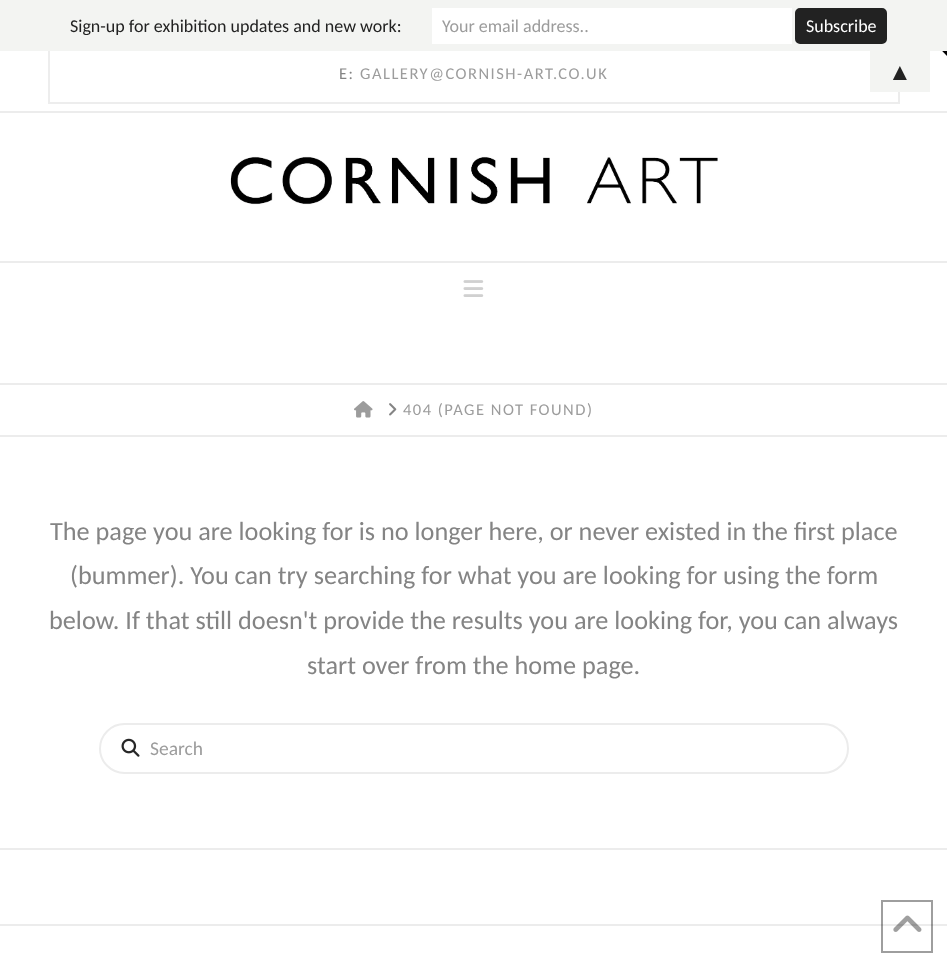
<?xml version="1.0" encoding="UTF-8"?>
<svg xmlns="http://www.w3.org/2000/svg" xmlns:xlink="http://www.w3.org/1999/xlink" width="947" height="967">
  <rect width="100%" height="100%" fill="#ffffff" />
  <path d="M 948 0 v 57 l -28 -29 z" fill="#000000" />
  <rect width="947" height="51" fill="#f3f4f2" />
  <rect x="432" y="8" width="360" height="36" fill="#ffffff" />
  <rect x="796" y="9" width="90" height="34" rx="4" fill="#222222" stroke="#222222" stroke-width="2" />
  <path d="M 900 51 v 53 l -2 -2 v -51 z" fill="#ececec" />
  <rect x="870" y="51" width="60" height="41" fill="#f3f4f2" />
  <rect y="111" width="947" height="2" fill="#ececec" />
  <path d="M 900 104 h -852 l 2 -2 h 848 z" fill="#000000" fill-opacity="0.07" />
  <path d="M 48 104 v -53 h 2 v 51 z" fill="#000000" fill-opacity="0.07" />
  <rect y="261" width="947" height="2" fill="#ececec" />
  <image x="230" y="156" width="488" height="49" xlink:href="image1.png" />
  <rect y="383" width="947" height="2" fill="#ececec" />
  <image x="463" y="280" width="21" height="17" xlink:href="image2.png" />
  <rect y="435" width="947" height="2" fill="#ececec" />
  <image x="354" y="401" width="19" height="17" xlink:href="image3.png" />
  <image x="389" y="403" width="8" height="13" xlink:href="image4.png" />
  <rect x="100" y="724" width="748" height="49" rx="24.5" fill="none" stroke="#ececec" stroke-width="2" />
  <image x="121" y="738" width="19" height="19" xlink:href="image5.png" />
  <rect y="848" width="947" height="2" fill="#ececec" />
  <rect y="924" width="947" height="2" fill="#ececec" />
  <rect x="882" y="901" width="50" height="51" fill="none" stroke="#000000" stroke-opacity="0.38" stroke-width="2" />
  <image x="893" y="915" width="29" height="17" xlink:href="image6.png" />
  <text x="70" y="32" style="font-family: Carlito; font-size: 18px; fill: #222222">Sign-up for exhibition updates and new work:</text>
  <text x="442" y="32" style="font-family: Carlito; font-size: 18px; fill: #9c9c9c">Your email address..</text>
  <text x="806" y="32" style="font-family: Carlito; font-size: 18px; fill: #ffffff">Subscribe</text>
  <text x="888" y="80" style="font-family: Liberation Sans; font-size: 24px; fill: #222222">▲</text>
  <text x="339" y="79" style="font-family: Carlito; font-size: 16.5px; letter-spacing: 1.5px; fill: #848484">E:</text>
  <text x="360" y="79" style="font-family: Carlito; font-size: 16.5px; letter-spacing: 1.5px; fill: #9c9c9c">GALLERY@CORNISH-ART.CO.UK</text>
  <text x="403" y="415" style="font-family: Carlito; font-size: 16.5px; letter-spacing: 1.5px; fill: #9c9c9c">404 (PAGE NOT FOUND)</text>
  <text x="50" y="540" style="font-family: Carlito; font-size: 26.25px; fill: #848484">The page you are looking for is no longer here, or never existed in the first place</text>
  <text x="70" y="584" style="font-family: Carlito; font-size: 26.25px; fill: #848484">(bummer). You can try searching for what you are looking for using the form</text>
  <text x="49" y="629" style="font-family: Carlito; font-size: 26.25px; fill: #848484">below. If that still doesn't provide the results you are looking for, you can always</text>
  <text x="307" y="674" style="font-family: Carlito; font-size: 26.25px; fill: #848484">start over from the home page.</text>
  <text x="150" y="755" style="font-family: Carlito; font-size: 19.5px; fill: #9c9c9c">Search</text>
</svg>
